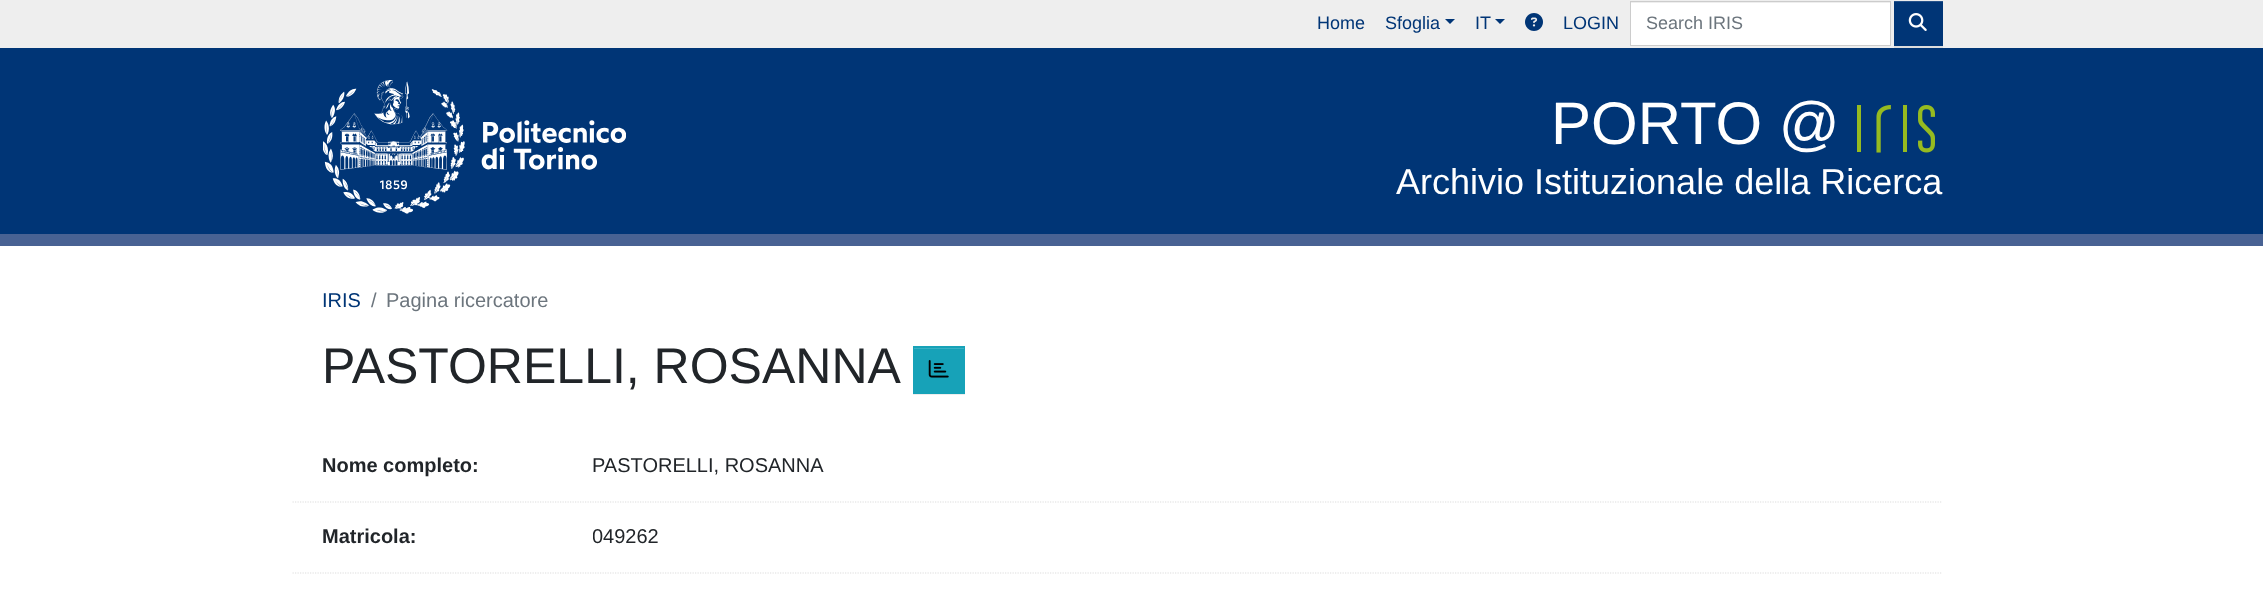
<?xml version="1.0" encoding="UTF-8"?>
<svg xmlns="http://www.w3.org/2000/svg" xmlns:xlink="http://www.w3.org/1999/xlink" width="2263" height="590">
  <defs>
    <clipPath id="clip1"><rect x="593" y="523" width="1320" height="30" /></clipPath>
  </defs>
  <rect width="100%" height="100%" fill="#ffffff" />
  <rect width="2263" height="48" fill="#eeeeee" />
  <path d="M 1445 19 h 10 l -5 5 z" fill="#003576" />
  <path d="M 1495 19 h 10 l -5 5 z" fill="#003576" />
  <image x="1525" y="13" width="18" height="18" xlink:href="image1.png" />
  <rect x="1631" y="3" width="259" height="42" fill="#ffffff" />
  <rect x="1630.5" y="1.5" width="260" height="44" fill="none" stroke="#cccccc" />
  <rect y="48" width="2263" height="186" fill="#003576" />
  <rect x="1894" y="3" width="49" height="45" fill="#000000" fill-opacity="0.07" filter="blur(0.5px)" />
  <rect x="1894" y="2" width="49" height="44" fill="#003576" />
  <rect x="1894" y="1" width="49" height="1" fill="#26538b" />
  <image x="1908" y="13" width="19" height="18" xlink:href="image2.png" />
  <rect y="234" width="2263" height="12" fill="#486293" />
  <image x="323" y="80" width="303" height="134" xlink:href="image3.png" />
  <image x="1857" y="105" width="78" height="48" xlink:href="image4.png" />
  <rect x="913" y="348" width="52" height="47" fill="#000000" fill-opacity="0.07" filter="blur(0.5px)" />
  <rect x="913" y="346" width="52" height="48" fill="#17a2b8" />
  <rect x="914" y="348" width="50" height="1" fill="#3ab0c3" />
  <image x="928" y="360" width="21" height="18" xlink:href="image5.png" />
  <path d="M 292.5 502 h 1650" fill="none" stroke="#dddddd" stroke-width="1.2" stroke-dasharray="1.25 1.25" />
  <path d="M 292.5 573 h 1650" fill="none" stroke="#dddddd" stroke-width="1.2" stroke-dasharray="1.25 1.25" />
  <text x="1317" y="29" style="font-family: Liberation Sans; font-size: 18px; fill: #003576">Home</text>
  <text x="1385" y="29" style="font-family: Liberation Sans; font-size: 18px; fill: #003576">Sfoglia</text>
  <text x="1475" y="29" style="font-family: Liberation Sans; font-size: 18px; fill: #003576">IT</text>
  <text x="1563" y="29" style="font-family: Liberation Sans; font-size: 18px; fill: #003576">LOGIN</text>
  <text x="1646" y="29" style="font-family: Liberation Sans; font-size: 18px; fill: #6c757d">Search IRIS</text>
  <text x="1551" y="144" style="font-family: Liberation Sans; font-size: 60px; fill: #ffffff">PORTO @</text>
  <text x="1396" y="194" style="font-family: Liberation Sans; font-size: 36px; fill: #ffffff">Archivio Istituzionale della Ricerca</text>
  <text x="322" y="307" style="font-family: Liberation Sans; font-size: 20px; fill: #003576">IRIS</text>
  <text x="371" y="307" style="font-family: Liberation Sans; font-size: 20px; fill: #6c757d">/</text>
  <text x="386" y="307" style="font-family: Liberation Sans; font-size: 20px; fill: #6c757d">Pagina ricercatore</text>
  <text x="322" y="383" style="font-family: Liberation Sans; font-size: 50px; fill: #212529">PASTORELLI, ROSANNA</text>
  <text x="322" y="472" style="font-family: Liberation Sans; font-size: 20px; font-weight: bold; fill: #212529">Nome completo:</text>
  <text x="592" y="472" style="font-family: Liberation Sans; font-size: 20px; fill: #212529">PASTORELLI, ROSANNA</text>
  <text x="322" y="543" style="font-family: Liberation Sans; font-size: 20px; font-weight: bold; fill: #212529">Matricola:</text>
  <g clip-path="url(#clip1)">
    <text x="592" y="543" style="font-family: Liberation Sans; font-size: 20px; fill: #212529">049262</text>
  </g>
</svg>
